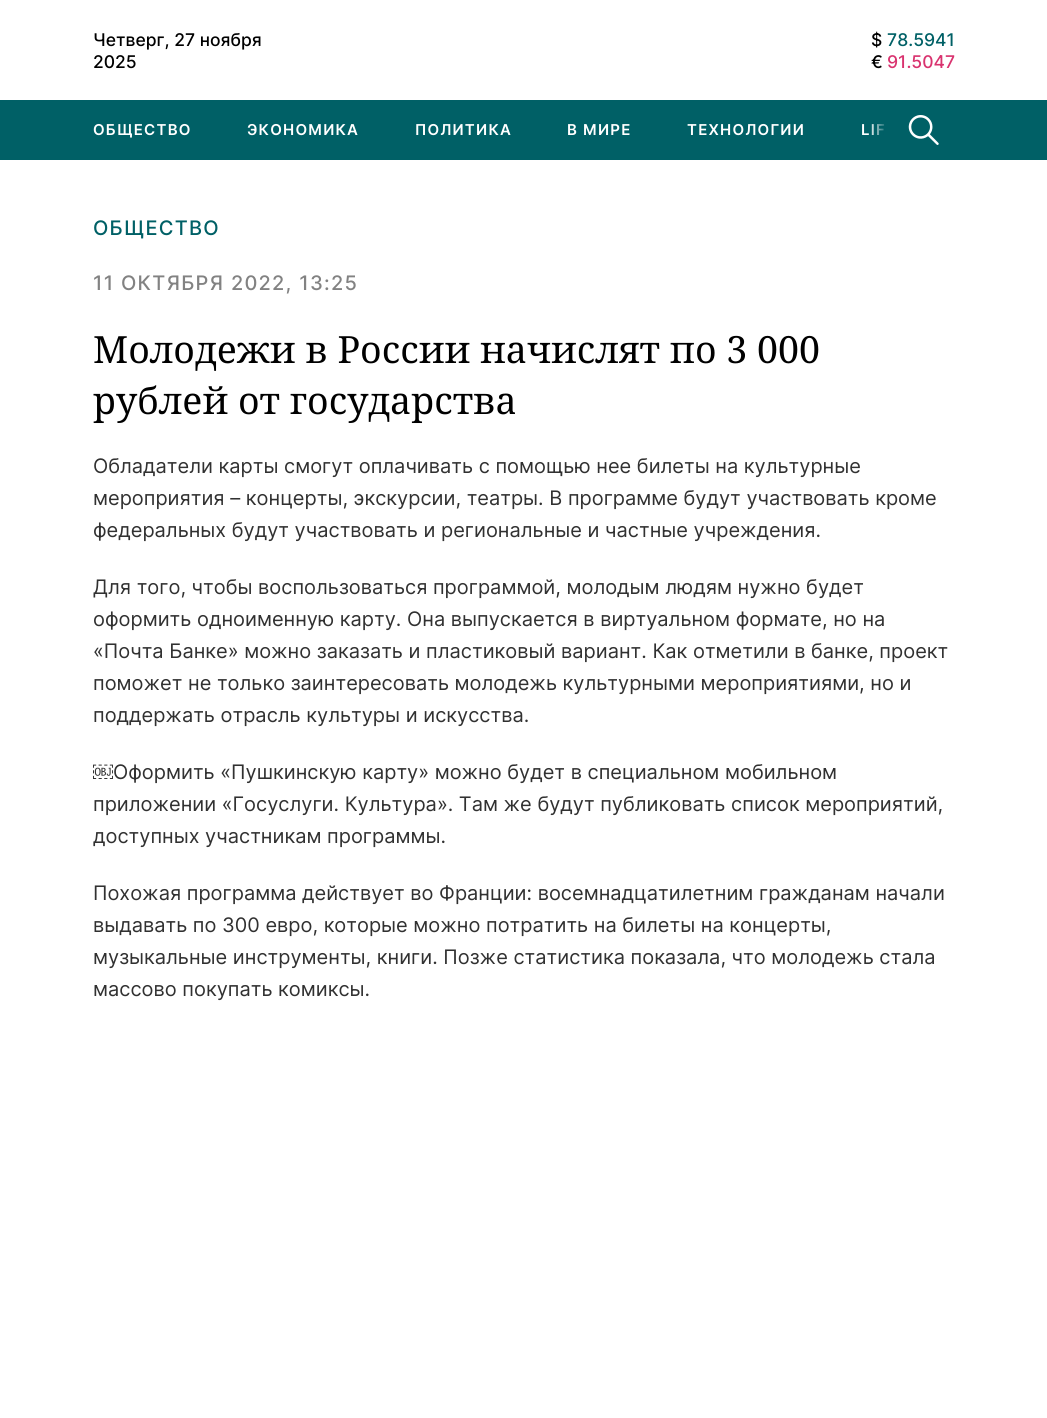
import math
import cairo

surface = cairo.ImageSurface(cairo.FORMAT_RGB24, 1047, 1418)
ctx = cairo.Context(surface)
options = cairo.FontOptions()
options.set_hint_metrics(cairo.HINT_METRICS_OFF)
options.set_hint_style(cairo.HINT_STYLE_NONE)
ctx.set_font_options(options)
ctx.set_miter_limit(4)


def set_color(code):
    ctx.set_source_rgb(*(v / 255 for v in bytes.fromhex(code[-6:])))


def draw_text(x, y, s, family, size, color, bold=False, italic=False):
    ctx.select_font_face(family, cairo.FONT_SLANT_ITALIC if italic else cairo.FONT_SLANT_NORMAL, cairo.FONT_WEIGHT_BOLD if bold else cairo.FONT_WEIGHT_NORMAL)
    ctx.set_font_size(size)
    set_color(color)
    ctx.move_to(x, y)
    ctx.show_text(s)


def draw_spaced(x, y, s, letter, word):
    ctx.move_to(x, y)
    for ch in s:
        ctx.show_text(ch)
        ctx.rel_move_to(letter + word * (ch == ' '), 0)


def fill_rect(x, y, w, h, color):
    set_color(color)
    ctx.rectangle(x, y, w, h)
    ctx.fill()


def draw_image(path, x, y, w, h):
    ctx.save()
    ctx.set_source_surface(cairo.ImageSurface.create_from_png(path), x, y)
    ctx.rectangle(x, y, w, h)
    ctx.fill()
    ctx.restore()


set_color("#ffffff")
ctx.paint()
draw_text(93, 46, "Четверг, 27 ноября", "Inter Medium", 17.5, "#000000")
draw_text(93, 68, "2025", "Inter Medium", 17.5, "#000000")
draw_text(871, 46, "$", "Inter Medium", 17.5, "#000000")
draw_text(887, 46, "78.5941", "Inter Medium", 17.5, "#006066")
draw_text(871, 68, "€", "Inter Medium", 17.5, "#000000")
draw_text(887, 68, "91.5047", "Inter Medium", 17.5, "#d9336f")
fill_rect(0, 100, 1047, 60, "#006066")
ctx.select_font_face("Inter SemiBold")
ctx.set_font_size(15)
set_color("#ffffff")
draw_spaced(93, 135, "ОБЩЕСТВО", 1.25, 0)
draw_spaced(247, 135, "ЭКОНОМИКА", 1.25, 0)
draw_spaced(415, 135, "ПОЛИТИКА", 1.25, 0)
draw_spaced(567, 135, "В МИРЕ", 1.25, 0)
draw_spaced(687, 135, "ТЕХНОЛОГИИ", 1.25, 0)
draw_spaced(861, 135, "LIF", 1.25, 0)
draw_image("assets/img1.png", 908, 115, 31, 30)
gradient = cairo.LinearGradient(868, 130, 905, 130)
gradient.add_color_stop_rgba(0, 0, 0.376, 0.4, 0)
gradient.add_color_stop_rgba(0.54, 0, 0.376, 0.4, 1)
ctx.set_source(gradient)
ctx.rectangle(868, 124, 17, 11)
ctx.fill()
ctx.select_font_face("Inter Medium")
ctx.set_font_size(20)
set_color("#006066")
draw_spaced(93, 235, "ОБЩЕСТВО", 1.25, 0)
set_color("#828282")
draw_spaced(93, 290, "11 ОКТЯБРЯ 2022, 13:25", 1.25, 0)
draw_text(93, 363, "Молодежи в России начислят по 3 000", "Noto Serif", 37.5, "#000000")
draw_text(93, 414, "рублей от государства", "Noto Serif", 37.5, "#000000")
draw_text(93, 473, "Обладатели карты смогут оплачивать с помощью нее билеты на культурные", "Inter", 20, "#313131")
draw_text(93, 505, "мероприятия – концерты, экскурсии, театры. В программе будут участвовать кроме", "Inter", 20, "#313131")
draw_text(93, 537, "федеральных будут участвовать и региональные и частные учреждения.", "Inter", 20, "#313131")
draw_text(93, 594, "Для того, чтобы воспользоваться программой, молодым людям нужно будет", "Inter", 20, "#313131")
draw_text(93, 626, "оформить одноименную карту. Она выпускается в виртуальном формате, но на", "Inter", 20, "#313131")
draw_text(93, 658, "«Почта Банке» можно заказать и пластиковый вариант. Как отметили в банке, проект", "Inter", 20, "#313131")
draw_text(93, 690, "поможет не только заинтересовать молодежь культурными мероприятиями, но и", "Inter", 20, "#313131")
draw_text(93, 722, "поддержать отрасль культуры и искусства.", "Inter", 20, "#313131")
draw_text(93, 779, "￼", "Liberation Serif", 20, "#313131")
draw_text(113, 779, "Оформить «Пушкинскую карту» можно будет в специальном мобильном", "Inter", 20, "#313131")
draw_text(93, 811, "приложении «Госуслуги. Культура». Там же будут публиковать список мероприятий,", "Inter", 20, "#313131")
draw_text(93, 843, "доступных участникам программы.", "Inter", 20, "#313131")
draw_text(93, 900, "Похожая программа действует во Франции: восемнадцатилетним гражданам начали", "Inter", 20, "#313131")
draw_text(93, 932, "выдавать по 300 евро, которые можно потратить на билеты на концерты,", "Inter", 20, "#313131")
draw_text(93, 964, "музыкальные инструменты, книги. Позже статистика показала, что молодежь стала", "Inter", 20, "#313131")
draw_text(93, 996, "массово покупать комиксы.", "Inter", 20, "#313131")
surface.write_to_png("output.png")
